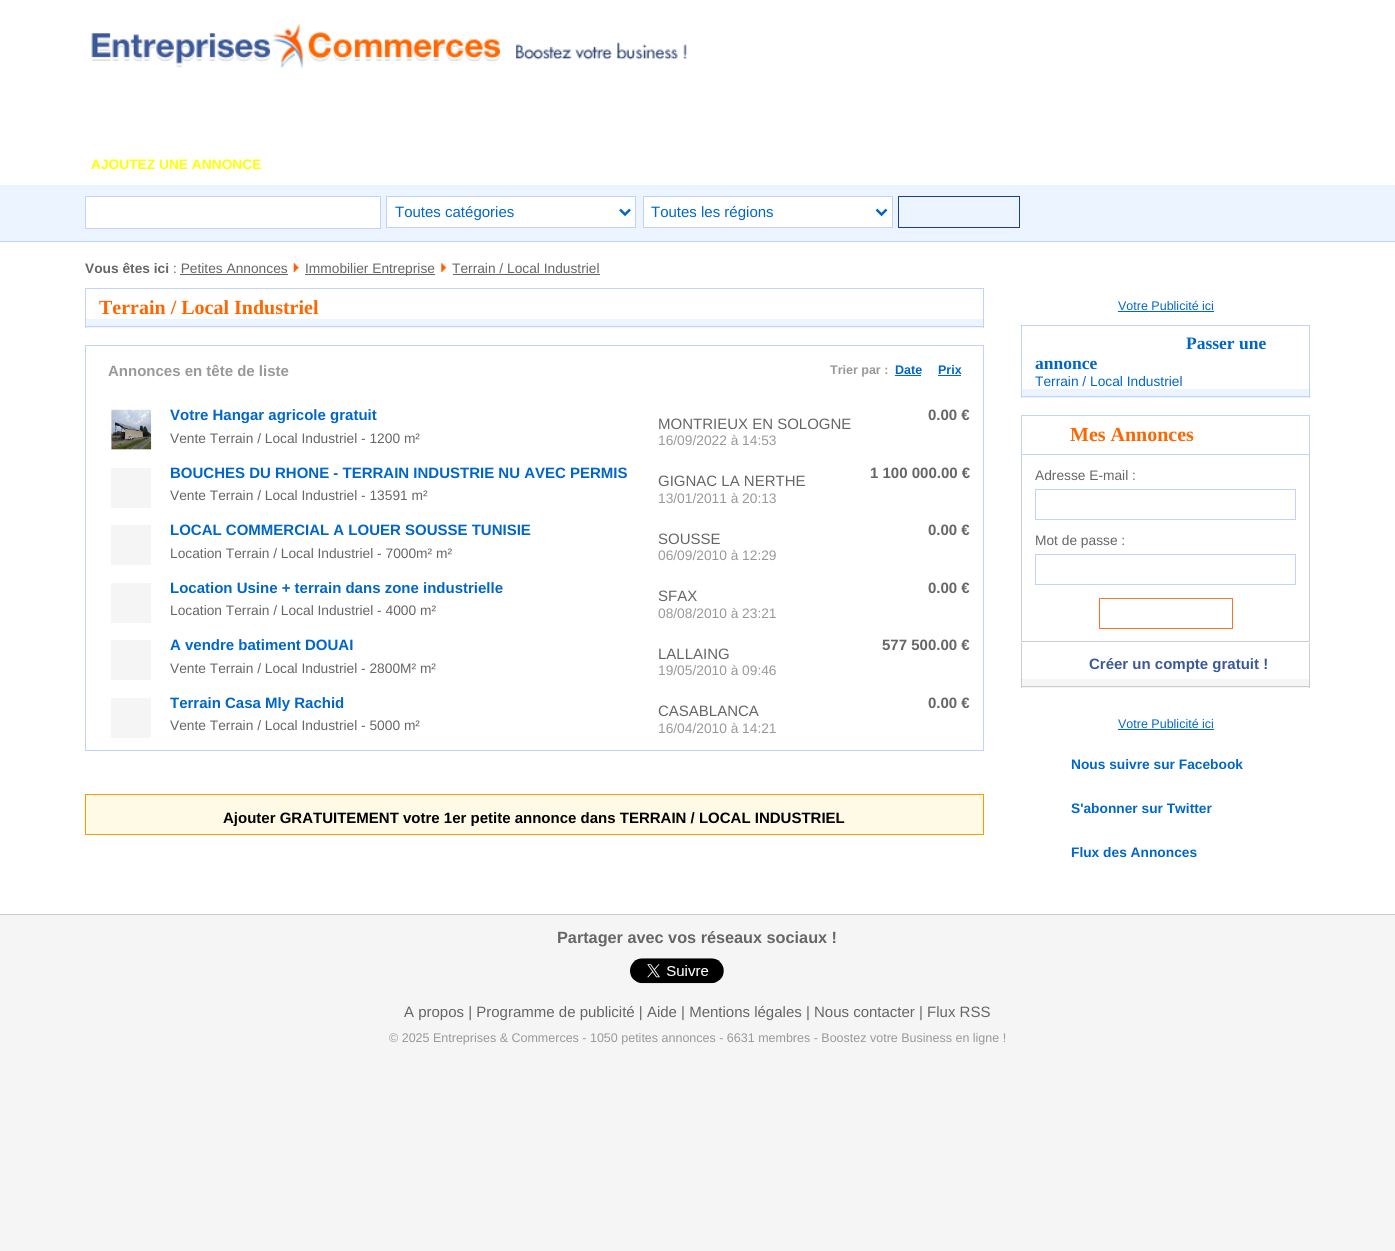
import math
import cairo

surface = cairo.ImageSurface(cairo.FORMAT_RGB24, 1395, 1251)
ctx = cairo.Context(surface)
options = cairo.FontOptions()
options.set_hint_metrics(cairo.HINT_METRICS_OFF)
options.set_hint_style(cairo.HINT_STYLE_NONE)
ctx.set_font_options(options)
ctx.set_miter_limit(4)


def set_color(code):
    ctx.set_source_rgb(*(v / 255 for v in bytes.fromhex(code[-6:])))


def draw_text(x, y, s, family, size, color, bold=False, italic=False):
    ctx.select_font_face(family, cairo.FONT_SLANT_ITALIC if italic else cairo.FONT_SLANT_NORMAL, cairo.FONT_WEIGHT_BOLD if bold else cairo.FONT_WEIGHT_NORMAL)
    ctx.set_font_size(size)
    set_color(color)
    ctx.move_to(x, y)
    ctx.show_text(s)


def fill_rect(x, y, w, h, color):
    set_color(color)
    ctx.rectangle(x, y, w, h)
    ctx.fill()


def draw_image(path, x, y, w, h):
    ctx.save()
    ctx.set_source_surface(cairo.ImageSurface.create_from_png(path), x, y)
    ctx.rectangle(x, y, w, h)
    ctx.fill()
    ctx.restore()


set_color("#ffffff")
ctx.paint()
fill_rect(0, 915, 1395, 336, "#f6f5f5")
draw_image("assets/img1.png", 91, 23, 409, 46)
draw_image("assets/img2.png", 516, 42, 171, 18)
draw_text(91, 169, "AJOUTEZ UNE ANNONCE", "Liberation Sans", 13.75, "#ffff00", bold=True)
fill_rect(0, 185, 1395, 56, "#ecf4ff")
set_color("#ffffff")
ctx.rectangle(85.5, 196.5, 295, 32)
ctx.fill_preserve()
set_color("#c0d3ff")
ctx.set_line_width(1)
ctx.stroke()
set_color("#ffffff")
ctx.rectangle(386.5, 196.5, 249, 31)
ctx.fill_preserve()
set_color("#c0d3ff")
ctx.stroke()
ctx.new_path()
ctx.move_to(620, 209.5)
ctx.line_to(625, 214.5)
ctx.line_to(630, 209.5)
set_color("#0066cc")
ctx.set_line_width(2.5)
ctx.stroke()
draw_text(395, 217, "Toutes catégories", "Liberation Sans", 15, "#0066cc")
set_color("#ffffff")
ctx.rectangle(643.5, 196.5, 249, 31)
ctx.fill_preserve()
set_color("#c0d3ff")
ctx.set_line_width(1)
ctx.stroke()
ctx.new_path()
ctx.move_to(876.5, 209.5)
ctx.line_to(881.5, 214.5)
ctx.line_to(886.5, 209.5)
set_color("#0066cc")
ctx.set_line_width(2.5)
ctx.stroke()
draw_text(651, 217, "Toutes les régions", "Liberation Sans", 15, "#0066cc")
ctx.rectangle(898.5, 196.5, 121, 31)
set_color("#1b3f8d")
ctx.set_line_width(1)
ctx.stroke()
fill_rect(0, 241, 1395, 1, "#c0d3ff")
draw_text(85, 273, "Vous êtes ici", "Liberation Sans", 13.75, "#666666", bold=True)
draw_text(173, 273, ": Petites Annonces", "Liberation Sans", 13.75, "#666666")
draw_image("assets/img3.png", 293, 263, 6, 9)
fill_rect(305, 274, 130, 1, "#666666")
draw_text(305, 273, "Immobilier Entreprise", "Liberation Sans", 13.75, "#666666")
draw_image("assets/img4.png", 441, 263, 6, 9)
draw_text(452, 273, "Terrain / Local Industriel", "Liberation Sans", 13.75, "#666666")
fill_rect(453, 274, 147, 1, "#666666")
fill_rect(180, 274, 108, 1, "#666666")
fill_rect(85, 288, 899, 1, "#c0d3ff")
fill_rect(983, 288, 1, 40, "#c0d3ff")
fill_rect(85, 288, 1, 31, "#c0d3ff")
draw_text(99, 314, "Terrain / Local Industriel", "Liberation Serif", 20, "#ff6600", bold=True)
fill_rect(86, 319, 897, 9, "#ecf4ff")
fill_rect(85, 326, 899, 1, "#c0d3ff")
fill_rect(85, 319, 1, 9, "#c0d3ff")
fill_rect(85, 345, 899, 1, "#c0d3ff")
fill_rect(983, 345, 1, 406, "#c0d3ff")
fill_rect(85, 345, 1, 398, "#c0d3ff")
draw_text(108, 376, "Annonces en tête de liste", "Liberation Sans", 15, "#999999", bold=True)
draw_text(830, 374, "Trier par :", "Liberation Sans", 12.5, "#999999", bold=True)
draw_text(895, 374, "Date", "Liberation Sans", 12.5, "#0066cc", bold=True)
fill_rect(895, 375, 26, 1, "#0066cc")
draw_text(938, 374, "Prix", "Liberation Sans", 12.5, "#0066cc", bold=True)
fill_rect(938, 375, 23, 1, "#0066cc")
fill_rect(111, 410, 40, 40, "#f6f5f5")
draw_image("assets/img5.png", 111, 409, 41, 41)
draw_text(170, 420, "Votre Hangar agricole gratuit", "Liberation Sans", 15, "#0066cc", bold=True)
draw_text(170, 443, "Vente Terrain / Local Industriel - 1200 m²", "Liberation Sans", 13.75, "#666666")
draw_text(928, 420, "0.00 €", "Liberation Sans", 15, "#666666", bold=True)
draw_text(658, 429, "MONTRIEUX EN SOLOGNE", "Liberation Sans", 15, "#666666")
draw_text(658, 445, "16/09/2022 à 14:53", "Liberation Sans", 13.75, "#999999")
fill_rect(111, 468, 40, 40, "#f6f5f5")
draw_text(170, 478, "BOUCHES DU RHONE - TERRAIN INDUSTRIE NU AVEC PERMIS", "Liberation Sans", 15, "#0066cc", bold=True)
draw_text(170, 500, "Vente Terrain / Local Industriel - 13591 m²", "Liberation Sans", 13.75, "#666666")
draw_text(658, 486, "GIGNAC LA NERTHE", "Liberation Sans", 15, "#666666")
draw_text(658, 503, "13/01/2011 à 20:13", "Liberation Sans", 13.75, "#999999")
draw_text(870, 478, "1 100 000.00 €", "Liberation Sans", 15, "#666666", bold=True)
fill_rect(111, 525, 40, 40, "#f6f5f5")
draw_text(170, 535, "LOCAL COMMERCIAL A LOUER SOUSSE TUNISIE", "Liberation Sans", 15, "#0066cc", bold=True)
draw_text(170, 558, "Location Terrain / Local Industriel - 7000m² m²", "Liberation Sans", 13.75, "#666666")
draw_text(658, 544, "SOUSSE", "Liberation Sans", 15, "#666666")
draw_text(658, 560, "06/09/2010 à 12:29", "Liberation Sans", 13.75, "#999999")
draw_text(928, 535, "0.00 €", "Liberation Sans", 15, "#666666", bold=True)
fill_rect(111, 583, 40, 40, "#f6f5f5")
draw_text(170, 593, "Location Usine + terrain dans zone industrielle", "Liberation Sans", 15, "#0066cc", bold=True)
draw_text(170, 615, "Location Terrain / Local Industriel - 4000 m²", "Liberation Sans", 13.75, "#666666")
draw_text(658, 601, "SFAX", "Liberation Sans", 15, "#666666")
draw_text(658, 618, "08/08/2010 à 23:21", "Liberation Sans", 13.75, "#999999")
draw_text(928, 593, "0.00 €", "Liberation Sans", 15, "#666666", bold=True)
fill_rect(111, 640, 40, 40, "#f6f5f5")
draw_text(170, 650, "A vendre batiment DOUAI", "Liberation Sans", 15, "#0066cc", bold=True)
draw_text(170, 673, "Vente Terrain / Local Industriel - 2800M² m²", "Liberation Sans", 13.75, "#666666")
draw_text(658, 659, "LALLAING", "Liberation Sans", 15, "#666666")
draw_text(658, 675, "19/05/2010 à 09:46", "Liberation Sans", 13.75, "#999999")
draw_text(882, 650, "577 500.00 €", "Liberation Sans", 15, "#666666", bold=True)
fill_rect(111, 698, 40, 40, "#f6f5f5")
draw_text(170, 708, "Terrain Casa Mly Rachid", "Liberation Sans", 15, "#0066cc", bold=True)
draw_text(170, 730, "Vente Terrain / Local Industriel - 5000 m²", "Liberation Sans", 13.75, "#666666")
draw_text(658, 716, "CASABLANCA", "Liberation Sans", 15, "#666666")
draw_text(658, 733, "16/04/2010 à 14:21", "Liberation Sans", 13.75, "#999999")
draw_text(928, 708, "0.00 €", "Liberation Sans", 15, "#666666", bold=True)
fill_rect(85, 750, 899, 1, "#c0d3ff")
fill_rect(85, 743, 1, 8, "#c0d3ff")
fill_rect(86, 795, 897, 31, "#fffae6")
fill_rect(85, 794, 899, 1, "#ff9900")
fill_rect(983, 794, 1, 41, "#ff9900")
fill_rect(85, 794, 1, 32, "#ff9900")
draw_text(223, 823, "Ajouter GRATUITEMENT votre 1er petite annonce dans TERRAIN / LOCAL INDUSTRIEL", "Liberation Sans", 15, "#000000", bold=True)
fill_rect(86, 826, 897, 8, "#fffae6")
fill_rect(85, 834, 899, 1, "#ff9900")
fill_rect(85, 826, 1, 9, "#ff9900")
draw_text(1118, 310, "Votre Publicité ici", "Liberation Sans", 12.5, "#0066cc")
fill_rect(1118, 311, 96, 1, "#0066cc")
fill_rect(1021, 325, 289, 1, "#c0d3ff")
fill_rect(1309, 325, 1, 73, "#c0d3ff")
fill_rect(1021, 325, 1, 64, "#c0d3ff")
draw_text(1186, 349, "Passer une", "Liberation Serif", 17.5, "#0066cc", bold=True)
draw_text(1035, 369, "annonce", "Liberation Serif", 17.5, "#0066cc", bold=True)
draw_text(1035, 386, "Terrain / Local Industriel", "Liberation Sans", 13.75, "#0066cc")
fill_rect(1022, 389, 287, 9, "#ecf4ff")
fill_rect(1021, 396, 289, 1, "#c0d3ff")
fill_rect(1021, 389, 1, 9, "#c0d3ff")
fill_rect(1021, 415, 289, 1, "#c0d3ff")
fill_rect(1309, 415, 1, 40, "#c0d3ff")
fill_rect(1021, 415, 1, 9, "#c0d3ff")
fill_rect(1021, 454, 289, 1, "#c0d3ff")
fill_rect(1021, 424, 1, 31, "#c0d3ff")
draw_text(1070, 441, "Mes Annonces", "Liberation Serif", 20, "#ff6600", bold=True)
fill_rect(1309, 455, 1, 186, "#cccccc")
fill_rect(1021, 455, 1, 186, "#cccccc")
draw_text(1035, 480, "Adresse E-mail :", "Liberation Sans", 13.75, "#666666")
ctx.rectangle(1035.5, 489.5, 260, 30)
set_color("#c0d3ff")
ctx.stroke()
draw_text(1035, 545, "Mot de passe :", "Liberation Sans", 13.75, "#666666")
ctx.rectangle(1035.5, 554.5, 260, 30)
set_color("#c0d3ff")
ctx.stroke()
ctx.rectangle(1099.5, 598.5, 133, 30)
set_color("#ff7329")
ctx.stroke()
fill_rect(1021, 641, 289, 1, "#cccccc")
fill_rect(1309, 643, 1, 45, "#cccccc")
fill_rect(1021, 643, 1, 36, "#cccccc")
draw_text(1089, 669, "Créer un compte gratuit !", "Liberation Sans", 15, "#3b5998", bold=True)
fill_rect(1022, 679, 287, 9, "#f5f5f5")
fill_rect(1021, 686, 289, 1, "#cccccc")
fill_rect(1021, 679, 1, 9, "#cccccc")
draw_text(1118, 728, "Votre Publicité ici", "Liberation Sans", 12.5, "#0066cc")
fill_rect(1118, 729, 96, 1, "#0066cc")
draw_text(1071, 769, "Nous suivre sur Facebook", "Liberation Sans", 13.75, "#0066cc", bold=True)
draw_text(1071, 813, "S'abonner sur Twitter", "Liberation Sans", 13.75, "#0066cc", bold=True)
draw_text(1071, 857, "Flux des Annonces", "Liberation Sans", 13.75, "#0066cc", bold=True)
fill_rect(0, 914, 1395, 1, "#cccccc")
draw_text(557, 943, "Partager avec vos réseaux sociaux !", "Liberation Sans", 16.25, "#666666", bold=True)
draw_image("assets/img6.png", 630, 958, 94, 26)
draw_text(404, 1017, "A propos | Programme de publicité | Aide | Mentions légales | Nous contacter | Flux RSS", "Liberation Sans", 15, "#666666")
draw_text(389, 1042, "© 2025 Entreprises & Commerces - 1050 petites annonces - 6631 membres - Boostez votre Business en ligne !", "Liberation Sans", 12.5, "#999999")
surface.write_to_png("output.png")
